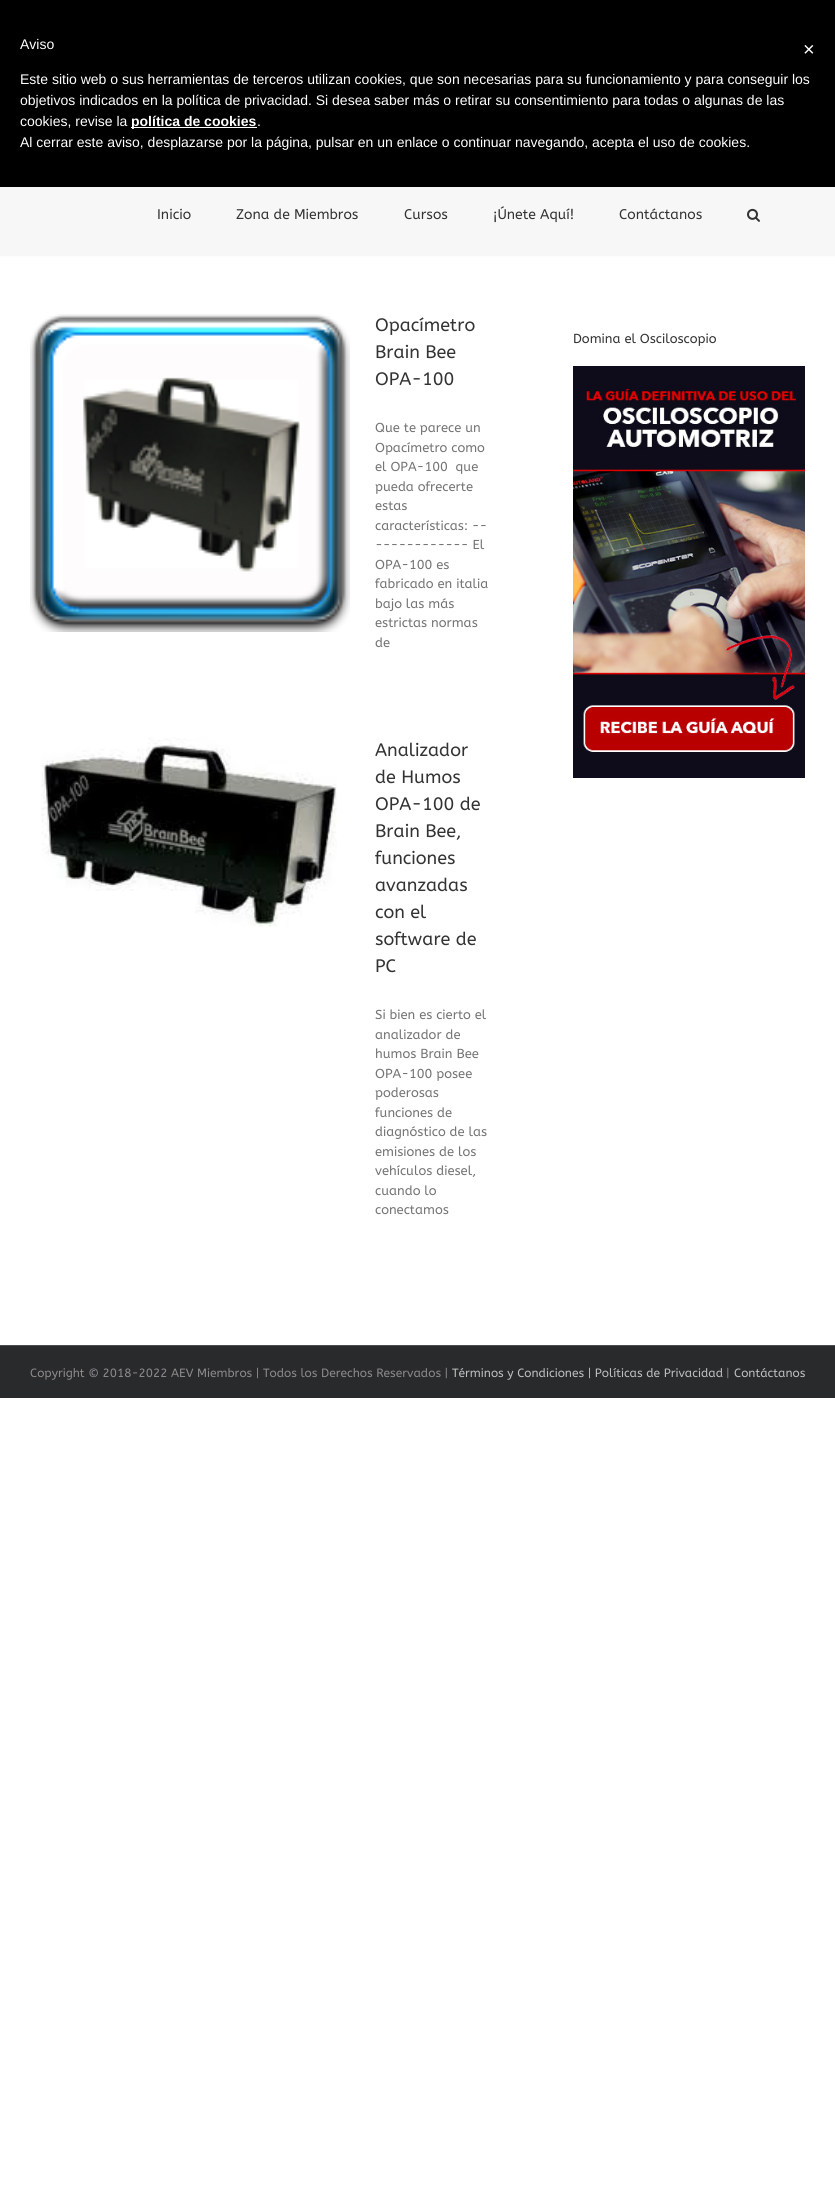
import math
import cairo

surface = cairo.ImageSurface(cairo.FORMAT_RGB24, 835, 2210)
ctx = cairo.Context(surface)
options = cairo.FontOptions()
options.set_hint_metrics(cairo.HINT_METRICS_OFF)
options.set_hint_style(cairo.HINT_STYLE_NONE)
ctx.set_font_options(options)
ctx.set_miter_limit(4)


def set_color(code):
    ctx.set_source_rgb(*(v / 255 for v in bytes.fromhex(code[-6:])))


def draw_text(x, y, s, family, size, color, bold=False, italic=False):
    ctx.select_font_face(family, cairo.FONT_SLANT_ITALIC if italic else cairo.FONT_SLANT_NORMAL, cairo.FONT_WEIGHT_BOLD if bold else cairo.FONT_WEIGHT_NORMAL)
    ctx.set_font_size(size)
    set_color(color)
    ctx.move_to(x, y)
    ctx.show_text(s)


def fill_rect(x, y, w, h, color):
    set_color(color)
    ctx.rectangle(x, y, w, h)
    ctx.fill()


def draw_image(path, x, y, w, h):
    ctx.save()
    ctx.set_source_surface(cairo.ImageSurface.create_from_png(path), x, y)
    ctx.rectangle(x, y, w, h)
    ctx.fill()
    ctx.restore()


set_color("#ffffff")
ctx.paint()
fill_rect(0, 0, 835, 187, "#000000")
draw_text(20, 49, "Aviso", "Liberation Sans", 14, "#ffffff")
draw_text(20, 84, "Este sitio web o sus herramientas de terceros utilizan cookies, que son necesarias para su funcionamiento y para conseguir los", "Liberation Sans", 14, "#ffffff")
draw_text(20, 105, "objetivos indicados en la política de privacidad. Si desea saber más o retirar su consentimiento para todas o algunas de las", "Liberation Sans", 14, "#ffffff")
draw_text(20, 126, "cookies, revise la", "Liberation Sans", 14, "#ffffff")
fill_rect(131, 127, 126, 1, "#ffffff")
draw_text(131, 126, "política de cookies", "Liberation Sans", 14, "#ffffff", bold=True)
draw_text(257, 126, ".", "Liberation Sans", 14, "#ffffff")
draw_text(20, 147, "Al cerrar este aviso, desplazarse por la página, pulsar en un enlace o continuar navegando, acepta el uso de cookies.", "Liberation Sans", 14, "#ffffff")
draw_text(803, 56, "×", "Liberation Sans", 20, "#ffffff")
fill_rect(0, 187, 835, 69, "#f7f7f7")
fill_rect(0, 256, 835, 1, "#fcfcfc")
draw_text(157, 219, "Inicio", "ABeeZee", 14, "#333333")
draw_text(236, 219, "Zona de Miembros", "ABeeZee", 14, "#333333")
draw_text(404, 219, "Cursos", "ABeeZee", 14, "#333333")
draw_text(493, 219, "¡Únete Aquí!", "ABeeZee", 14, "#333333")
draw_text(619, 219, "Contáctanos", "ABeeZee", 14, "#333333")
draw_image("assets/img1.png", 747, 208, 13, 14)
draw_image("assets/img2.png", 30, 314, 320, 318)
draw_text(375, 331, "Opacímetro", "ABeeZee", 18, "#333333")
draw_text(375, 358, "Brain Bee", "ABeeZee", 18, "#333333")
draw_text(375, 385, "OPA-100", "ABeeZee", 18, "#333333")
draw_text(375, 432, "Que te parece un", "ABeeZee", 13, "#747474")
draw_text(375, 452, "Opacímetro como", "ABeeZee", 13, "#747474")
draw_text(375, 471, "el OPA-100  que", "ABeeZee", 13, "#747474")
draw_text(375, 491, "pueda ofrecerte", "ABeeZee", 13, "#747474")
draw_text(375, 510, "estas", "ABeeZee", 13, "#747474")
draw_text(375, 530, "características: --", "ABeeZee", 13, "#747474")
draw_text(375, 549, "------------ El", "ABeeZee", 13, "#747474")
draw_text(375, 569, "OPA-100 es", "ABeeZee", 13, "#747474")
draw_text(375, 588, "fabricado en italia", "ABeeZee", 13, "#747474")
draw_text(375, 608, "bajo las más", "ABeeZee", 13, "#747474")
draw_text(375, 627, "estrictas normas", "ABeeZee", 13, "#747474")
draw_text(375, 647, "de", "ABeeZee", 13, "#747474")
draw_image("assets/img3.png", 41, 737, 296, 190)
draw_text(375, 756, "Analizador", "ABeeZee", 18, "#333333")
draw_text(375, 783, "de Humos", "ABeeZee", 18, "#333333")
draw_text(375, 810, "OPA-100 de", "ABeeZee", 18, "#333333")
draw_text(375, 837, "Brain Bee,", "ABeeZee", 18, "#333333")
draw_text(375, 864, "funciones", "ABeeZee", 18, "#333333")
draw_text(375, 891, "avanzadas", "ABeeZee", 18, "#333333")
draw_text(375, 918, "con el", "ABeeZee", 18, "#333333")
draw_text(375, 945, "software de", "ABeeZee", 18, "#333333")
draw_text(375, 972, "PC", "ABeeZee", 18, "#333333")
draw_text(375, 1019, "Si bien es cierto el", "ABeeZee", 13, "#747474")
draw_text(375, 1039, "analizador de", "ABeeZee", 13, "#747474")
draw_text(375, 1058, "humos Brain Bee", "ABeeZee", 13, "#747474")
draw_text(375, 1078, "OPA-100 posee", "ABeeZee", 13, "#747474")
draw_text(375, 1097, "poderosas", "ABeeZee", 13, "#747474")
draw_text(375, 1117, "funciones de", "ABeeZee", 13, "#747474")
draw_text(375, 1136, "diagnóstico de las", "ABeeZee", 13, "#747474")
draw_text(375, 1156, "emisiones de los", "ABeeZee", 13, "#747474")
draw_text(375, 1175, "vehículos diesel,", "ABeeZee", 13, "#747474")
draw_text(375, 1195, "cuando lo", "ABeeZee", 13, "#747474")
draw_text(375, 1214, "conectamos", "ABeeZee", 13, "#747474")
draw_text(573, 343, "Domina el Osciloscopio", "ABeeZee", 13, "#333333")
draw_image("assets/img4.png", 573, 366, 232, 412)
fill_rect(0, 1346, 835, 52, "#282a2b")
fill_rect(0, 1345, 835, 1, "#4b4c4d")
draw_text(30, 1377, "Copyright © 2018-2022 AEV Miembros | Todos los Derechos Reservados |", "ABeeZee", 12, "#8c8989")
draw_text(452, 1377, "Términos y Condiciones | Políticas de Privacidad", "ABeeZee", 12, "#bfbfbf")
draw_text(726, 1377, "|", "ABeeZee", 12, "#8c8989")
draw_text(734, 1377, "Contáctanos", "ABeeZee", 12, "#bfbfbf")
surface.write_to_png("output.png")
